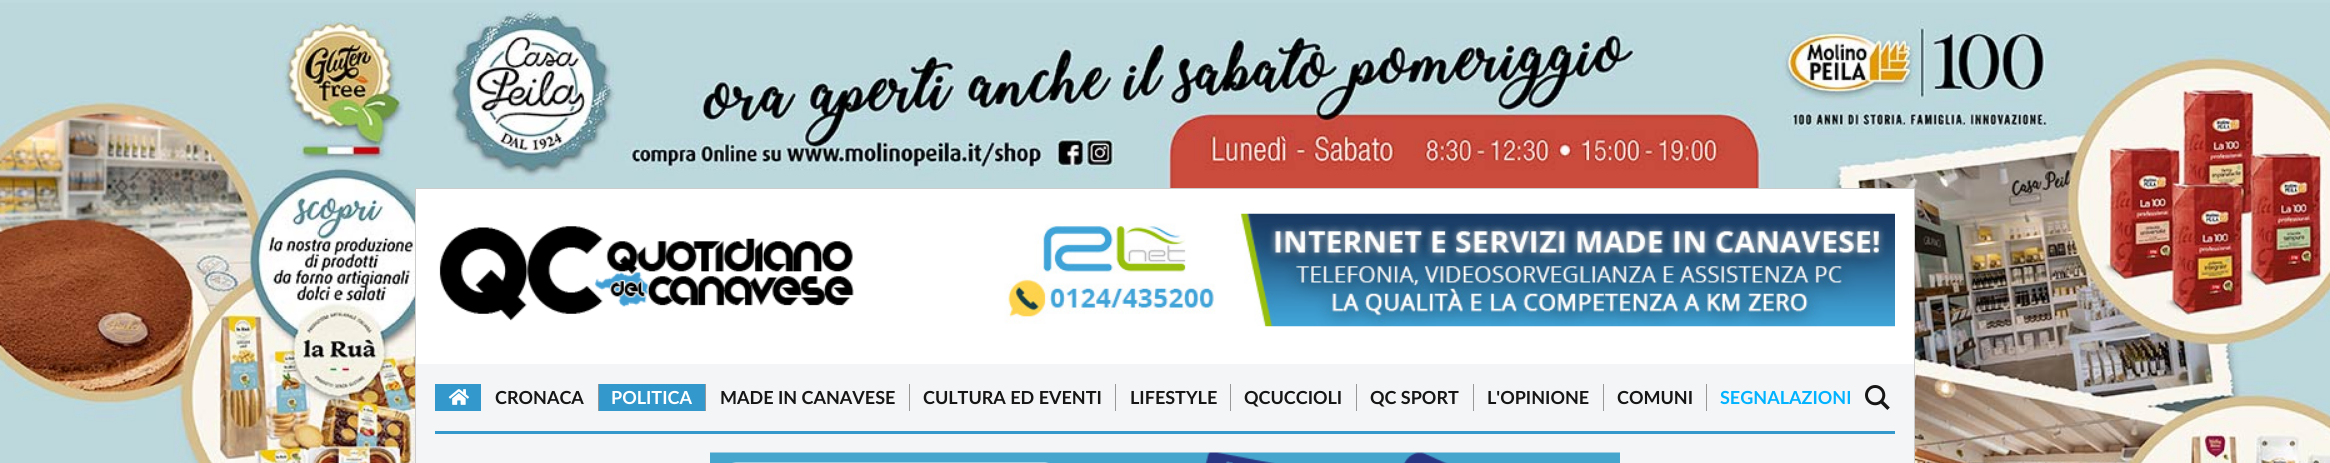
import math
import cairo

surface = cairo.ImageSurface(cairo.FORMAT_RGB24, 2330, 463)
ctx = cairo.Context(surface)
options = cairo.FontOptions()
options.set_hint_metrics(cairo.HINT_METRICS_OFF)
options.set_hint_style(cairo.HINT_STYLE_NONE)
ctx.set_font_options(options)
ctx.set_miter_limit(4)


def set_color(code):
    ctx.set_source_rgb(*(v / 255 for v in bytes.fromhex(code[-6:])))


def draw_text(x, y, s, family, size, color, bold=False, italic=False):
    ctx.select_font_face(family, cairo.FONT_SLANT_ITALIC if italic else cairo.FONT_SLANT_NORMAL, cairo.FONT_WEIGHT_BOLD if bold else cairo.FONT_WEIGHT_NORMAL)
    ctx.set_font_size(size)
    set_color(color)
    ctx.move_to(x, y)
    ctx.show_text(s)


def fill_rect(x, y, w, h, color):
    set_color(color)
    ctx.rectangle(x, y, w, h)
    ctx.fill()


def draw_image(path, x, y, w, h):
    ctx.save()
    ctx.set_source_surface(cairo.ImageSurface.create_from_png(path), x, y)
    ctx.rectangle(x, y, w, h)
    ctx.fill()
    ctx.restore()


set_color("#ffffff")
ctx.paint()
draw_image("assets/img1.png", 0, 0, 2330, 463)
fill_rect(416, 189, 1498, 175, "#ffffff")
ctx.rectangle(415.5, 188.5, 1499, 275)
set_color("#cccccc")
ctx.set_line_width(1)
ctx.stroke()
draw_image("assets/img2.png", 439, 226, 415, 95)
draw_image("assets/img3.png", 985, 213, 910, 114)
fill_rect(416, 364, 1498, 99, "#f4f5f6")
draw_image("assets/img4.png", 710, 452, 910, 11)
fill_rect(435, 431, 1460, 3, "#3398cc")
fill_rect(435, 384, 46, 27, "#3398cc")
draw_image("assets/img5.png", 448, 389, 21, 16)
fill_rect(598, 384, 1, 27, "#999999")
draw_text(495, 404, "CRONACA", "Lato", 18, "#161616", bold=True)
fill_rect(599, 384, 106, 27, "#3398cc")
fill_rect(705, 384, 1, 27, "#999999")
draw_text(611, 404, "POLITICA", "Lato", 18, "#ffffff", bold=True)
fill_rect(909, 384, 1, 27, "#999999")
draw_text(720, 404, "MADE IN CANAVESE", "Lato", 18, "#161616", bold=True)
fill_rect(1115, 384, 1, 27, "#999999")
draw_text(923, 404, "CULTURA ED EVENTI", "Lato", 18, "#161616", bold=True)
fill_rect(1230, 384, 1, 27, "#999999")
draw_text(1130, 404, "LIFESTYLE", "Lato", 18, "#161616", bold=True)
fill_rect(1356, 384, 1, 27, "#999999")
draw_text(1244, 404, "QCUCCIOLI", "Lato", 18, "#161616", bold=True)
fill_rect(1473, 384, 1, 27, "#999999")
draw_text(1370, 404, "QC SPORT", "Lato", 18, "#161616", bold=True)
fill_rect(1603, 384, 1, 27, "#999999")
draw_text(1487, 404, "L'OPINIONE", "Lato", 18, "#161616", bold=True)
fill_rect(1706, 384, 1, 27, "#999999")
draw_text(1617, 404, "COMUNI", "Lato", 18, "#161616", bold=True)
draw_text(1720, 404, "SEGNALAZIONI", "Lato", 18, "#00b2ff", bold=True)
draw_image("assets/img6.png", 1865, 385, 25, 25)
surface.write_to_png("output.png")
